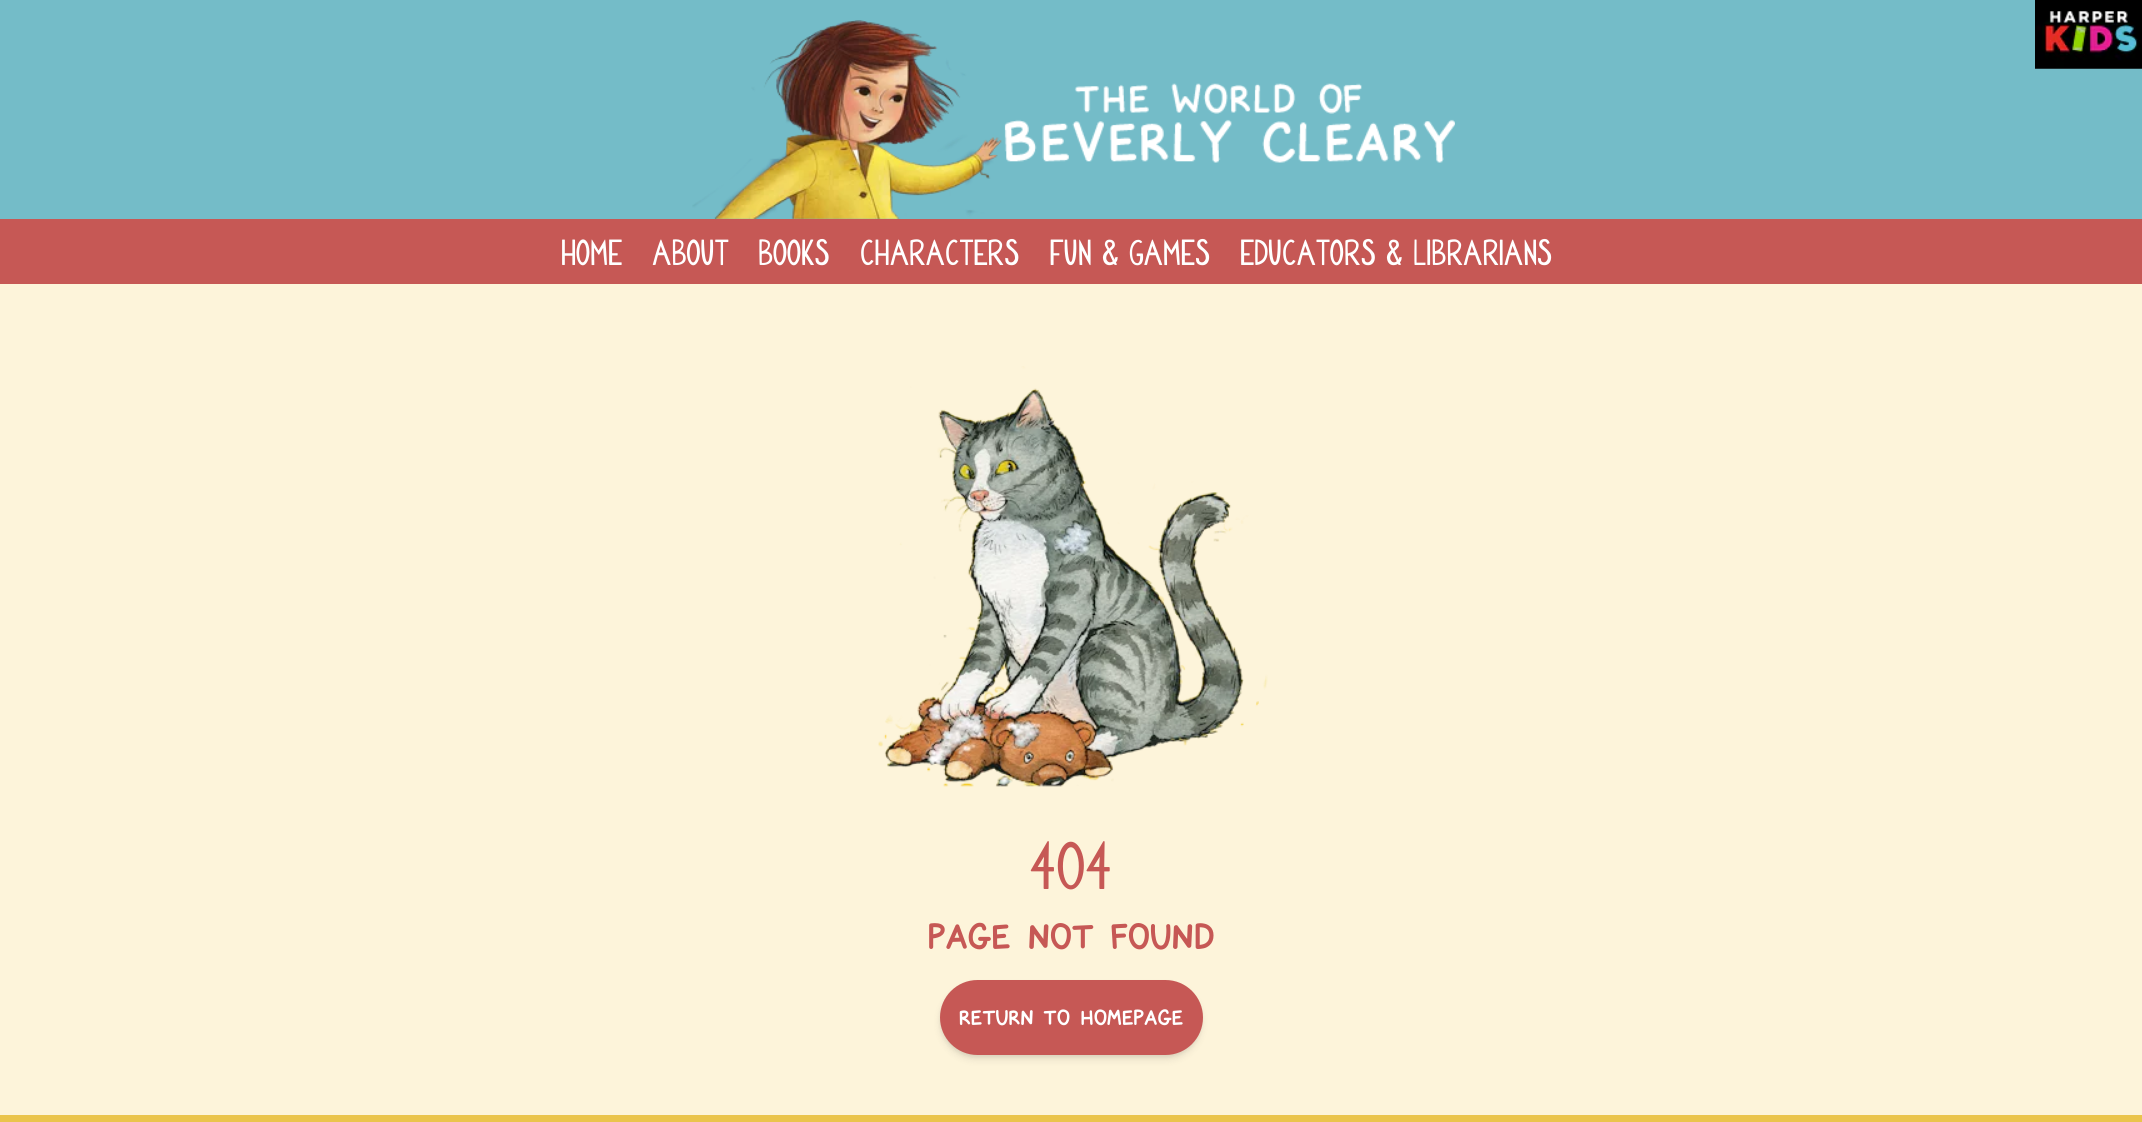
import math
import cairo

surface = cairo.ImageSurface(cairo.FORMAT_RGB24, 2142, 1122)
ctx = cairo.Context(surface)
options = cairo.FontOptions()
options.set_hint_metrics(cairo.HINT_METRICS_OFF)
options.set_hint_style(cairo.HINT_STYLE_NONE)
ctx.set_font_options(options)
ctx.set_miter_limit(4)


def set_color(code):
    ctx.set_source_rgb(*(v / 255 for v in bytes.fromhex(code[-6:])))


def draw_text(x, y, s, family, size, color, bold=False, italic=False):
    ctx.select_font_face(family, cairo.FONT_SLANT_ITALIC if italic else cairo.FONT_SLANT_NORMAL, cairo.FONT_WEIGHT_BOLD if bold else cairo.FONT_WEIGHT_NORMAL)
    ctx.set_font_size(size)
    set_color(color)
    ctx.move_to(x, y)
    ctx.show_text(s)


def fill_rect(x, y, w, h, color):
    set_color(color)
    ctx.rectangle(x, y, w, h)
    ctx.fill()


def rounded_rect(x, y, w, h, r):
    ctx.new_sub_path()
    for i, (u, v) in enumerate([(x + w - r, y + h - r), (x + r, y + h - r), (x + r, y + r), (x + w - r, y + r)]):
        ctx.arc(u, v, r, i * math.pi / 2, (i + 1) * math.pi / 2)
    ctx.close_path()


def draw_shadow(x, y, w, h, r, blur, alpha):
    ctx.push_group_with_content(cairo.CONTENT_ALPHA)
    ctx.set_operator(cairo.OPERATOR_SOURCE)
    for i in range(15, -16, -2):
        e = blur * i / 6
        if min(w, h) + 2 * e > 0:
            ctx.set_source_rgba(0, 0, 0, alpha * math.erfc((i - 1) / 8.5) / 2)
            rounded_rect(x - e, y - e, w + 2 * e, h + 2 * e, max(0, min(r + e + blur * .6, min(w, h) / 2 + e)))
            ctx.fill()
    ctx.mask(ctx.pop_group())


def draw_image(path, x, y, w, h):
    ctx.save()
    ctx.set_source_surface(cairo.ImageSurface.create_from_png(path), x, y)
    ctx.rectangle(x, y, w, h)
    ctx.fill()
    ctx.restore()


set_color("#fdf4da")
ctx.paint()
fill_rect(0, 0, 2142, 219, "#74bcc8")
draw_image("assets/img1.png", 692, 20, 763, 199)
draw_image("assets/img2.png", 2035, 0, 107, 69)
fill_rect(0, 219, 2142, 65, "#c65855")
draw_text(561, 265, "HOME", "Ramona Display", 40, "#ffffff")
draw_text(652, 265, "ABOUT", "Ramona Display", 40, "#ffffff")
draw_text(758, 265, "BOOKS", "Ramona Display", 40, "#ffffff")
draw_text(860, 265, "CHARACTERS", "Ramona Display", 40, "#ffffff")
draw_text(1049, 265, "FUN & GAMES", "Ramona Display", 40, "#ffffff")
draw_text(1240, 265, "EDUCATORS & LIBRARIANS", "Ramona Display", 40, "#ffffff")
draw_image("assets/img3.png", 878, 366, 390, 421)
draw_text(1030, 889, "404", "Ramona Display", 75, "#c65855")
draw_text(928, 949, "PAGE NOT FOUND", "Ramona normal", 62.5, "#c65855")
set_color("#000000")
draw_shadow(941, 984, 260, 72, 36, 2.5, 0.08)
draw_shadow(941, 986, 260, 73, 36.5, 4, 0.1)
set_color("#c65855")
rounded_rect(940, 980, 263, 75, 37.5)
ctx.fill()
draw_text(959, 1025, "RETURN TO HOMEPAGE", "Ramona normal", 37.5, "#ffffff")
fill_rect(0, 1115, 2142, 7, "#eac44c")
surface.write_to_png("output.png")
